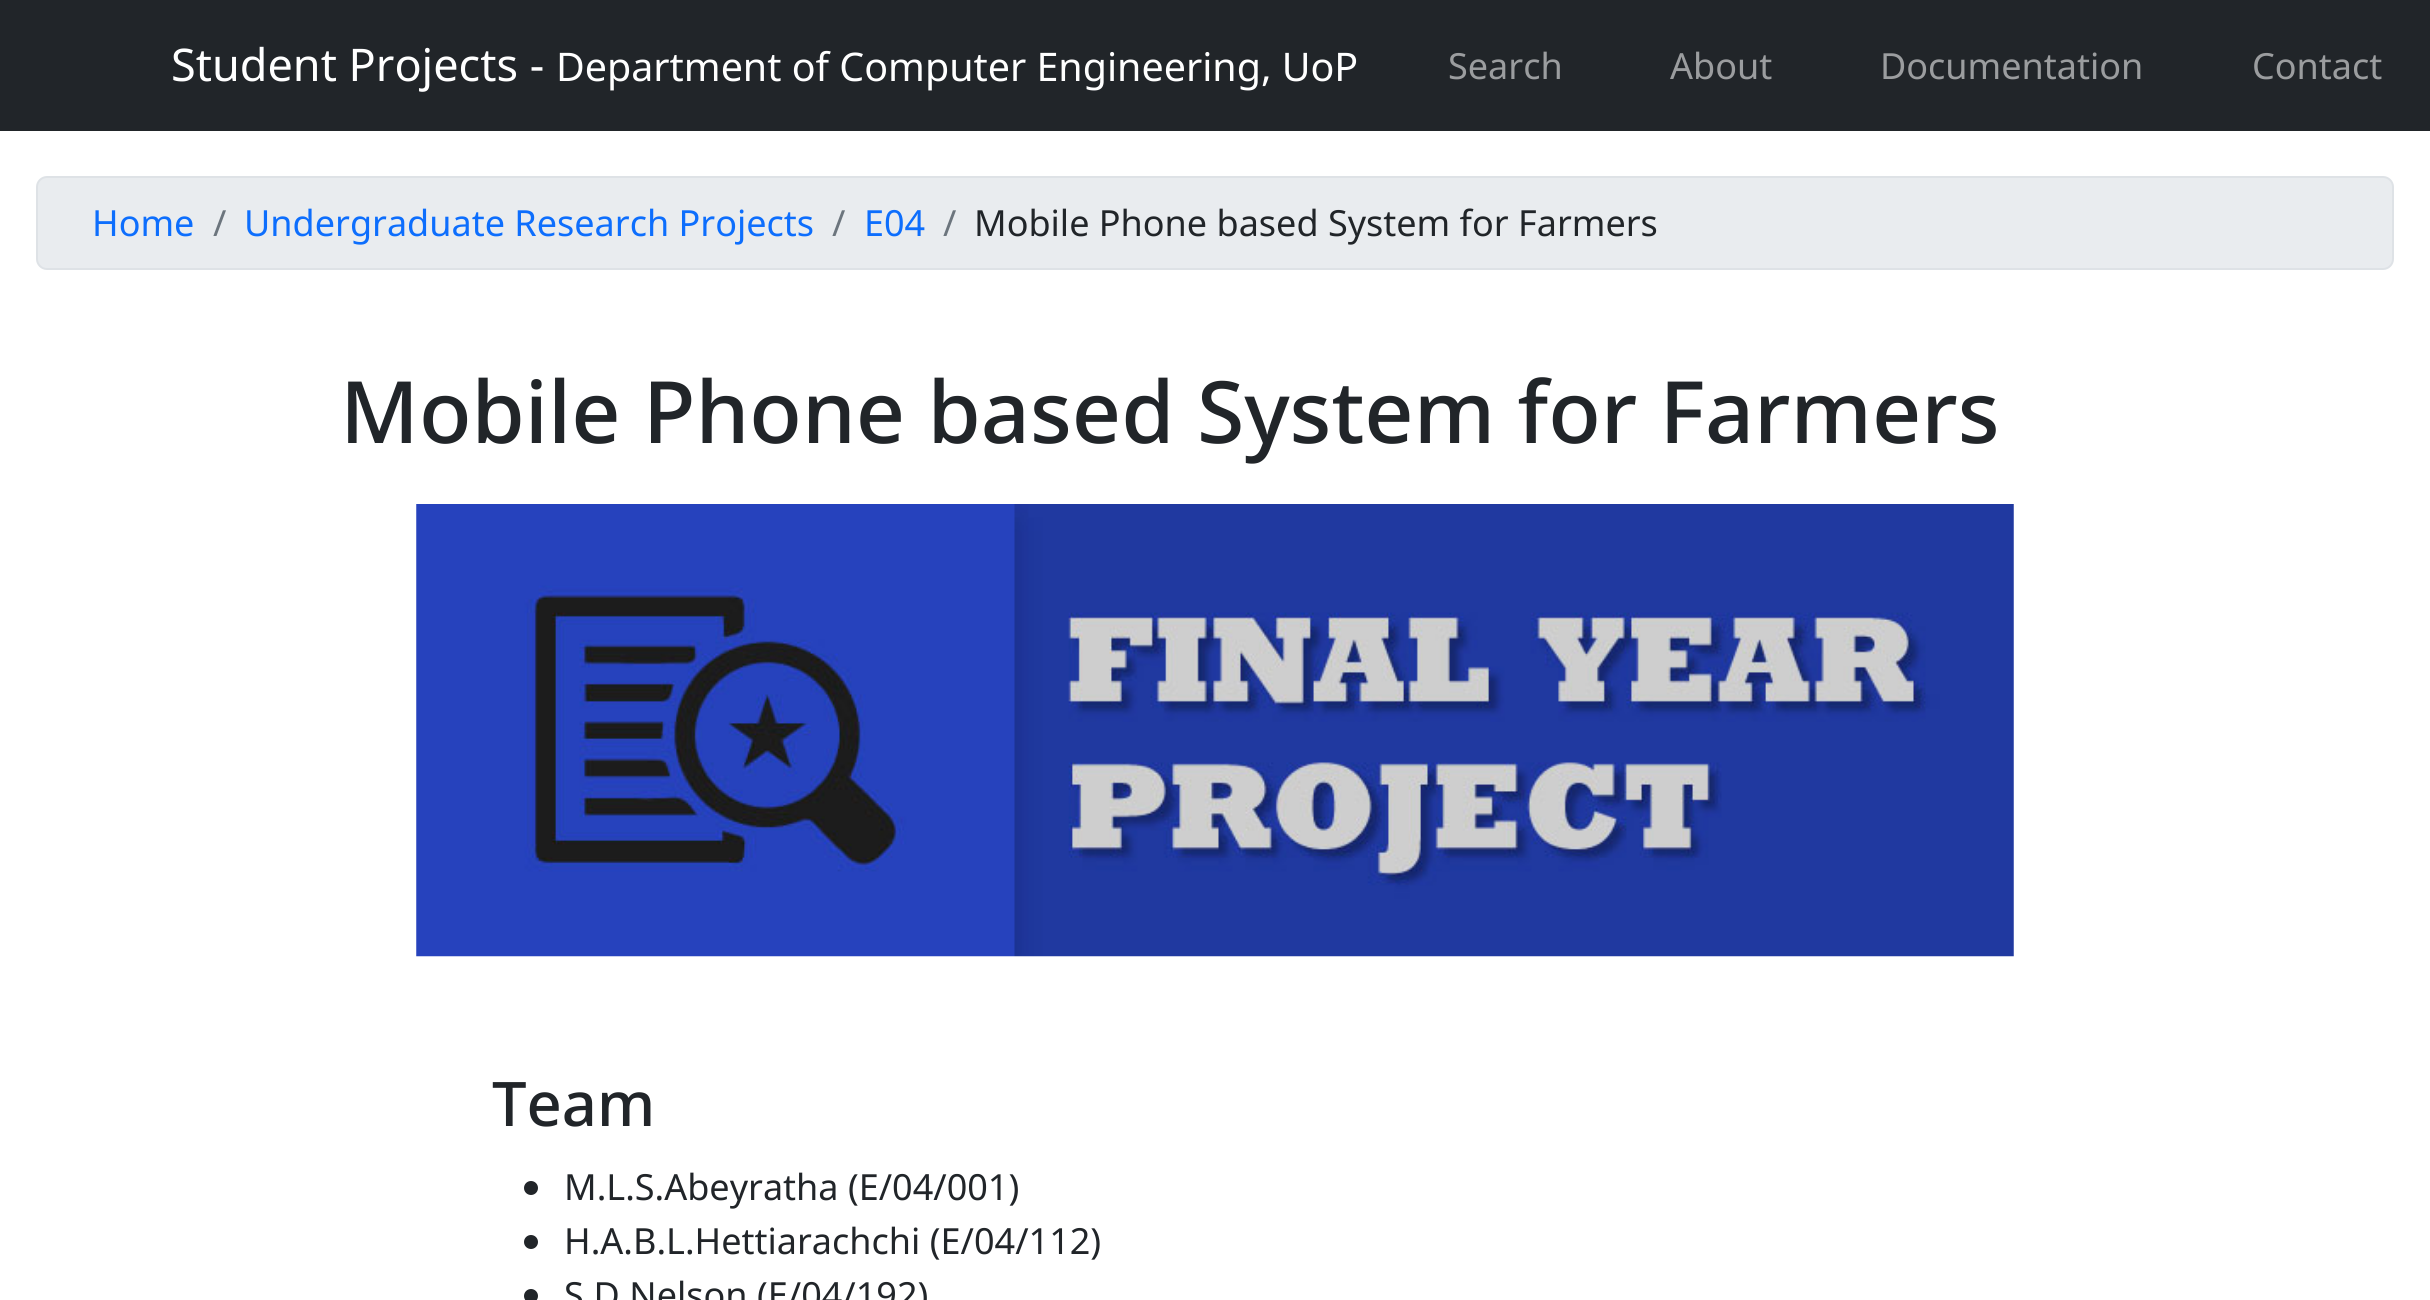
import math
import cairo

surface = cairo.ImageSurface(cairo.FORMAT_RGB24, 2430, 1300)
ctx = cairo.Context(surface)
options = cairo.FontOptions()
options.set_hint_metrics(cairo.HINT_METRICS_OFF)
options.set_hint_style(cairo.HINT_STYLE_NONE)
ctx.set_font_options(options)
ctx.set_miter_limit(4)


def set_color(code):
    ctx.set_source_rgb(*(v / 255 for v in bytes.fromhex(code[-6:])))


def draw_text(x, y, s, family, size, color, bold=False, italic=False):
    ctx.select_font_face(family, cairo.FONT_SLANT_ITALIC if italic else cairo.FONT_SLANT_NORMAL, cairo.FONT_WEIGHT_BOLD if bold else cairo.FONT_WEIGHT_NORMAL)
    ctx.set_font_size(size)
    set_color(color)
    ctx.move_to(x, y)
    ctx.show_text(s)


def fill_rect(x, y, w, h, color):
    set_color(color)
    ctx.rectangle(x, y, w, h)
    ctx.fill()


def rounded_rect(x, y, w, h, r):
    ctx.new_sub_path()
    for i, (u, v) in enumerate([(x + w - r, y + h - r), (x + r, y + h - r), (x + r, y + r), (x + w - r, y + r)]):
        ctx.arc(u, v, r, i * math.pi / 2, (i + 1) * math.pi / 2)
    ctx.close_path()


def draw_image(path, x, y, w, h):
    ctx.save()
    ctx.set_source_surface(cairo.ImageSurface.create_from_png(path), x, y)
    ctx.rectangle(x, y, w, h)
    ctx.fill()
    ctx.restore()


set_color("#ffffff")
ctx.paint()
fill_rect(0, 0, 2430, 131, "#212529")
draw_text(171, 81, "Student Projects -", "Noto Sans", 45, "#ffffff")
draw_text(556, 81, "Department of Computer Engineering, UoP", "Noto Sans", 39.4, "#ffffff")
draw_text(1448, 79, "Search", "Noto Sans", 36, "#9b9d9f")
draw_text(1670, 79, "About", "Noto Sans", 36, "#9b9d9f")
draw_text(1880, 79, "Documentation", "Noto Sans", 36, "#9b9d9f")
draw_text(2252, 79, "Contact", "Noto Sans", 36, "#9b9d9f")
set_color("#e9ecef")
rounded_rect(37, 177, 2356, 92, 10)
ctx.fill_preserve()
set_color("#dee2e6")
ctx.stroke()
draw_text(92, 236, "Home", "Noto Sans", 36, "#0d6efd")
draw_text(213, 236, "/", "Noto Sans", 36, "#6c757d")
draw_text(244, 236, "Undergraduate Research Projects", "Noto Sans", 36, "#0d6efd")
draw_text(832, 236, "/", "Noto Sans", 36, "#6c757d")
draw_text(864, 236, "E04", "Noto Sans", 36, "#0d6efd")
draw_text(943, 236, "/", "Noto Sans", 36, "#6c757d")
draw_text(974, 236, "Mobile Phone based System for Farmers", "Noto Sans", 36, "#212529")
draw_text(340, 443, "Mobile Phone based System for Farmers", "Noto Sans Medium", 86, "#212529")
draw_image("assets/img1.png", 416, 504, 1598, 453)
draw_text(492, 1126, "Team", "Noto Sans Medium", 61.5, "#212529")
ctx.new_path()
ctx.arc(531, 1188, 7, 0, 2 * math.pi)
ctx.fill()
draw_text(564, 1200, "M.L.S.Abeyratha (E/04/001)", "Noto Sans", 36, "#212529")
ctx.new_path()
ctx.arc(531, 1242, 7, 0, 2 * math.pi)
ctx.fill()
draw_text(564, 1254, "H.A.B.L.Hettiarachchi (E/04/112)", "Noto Sans", 36, "#212529")
ctx.new_path()
ctx.arc(531, 1296, 7, 0, 2 * math.pi)
ctx.fill()
draw_text(564, 1308, "S.D.Nelson (E/04/192)", "Noto Sans", 36, "#212529")
surface.write_to_png("output.png")
